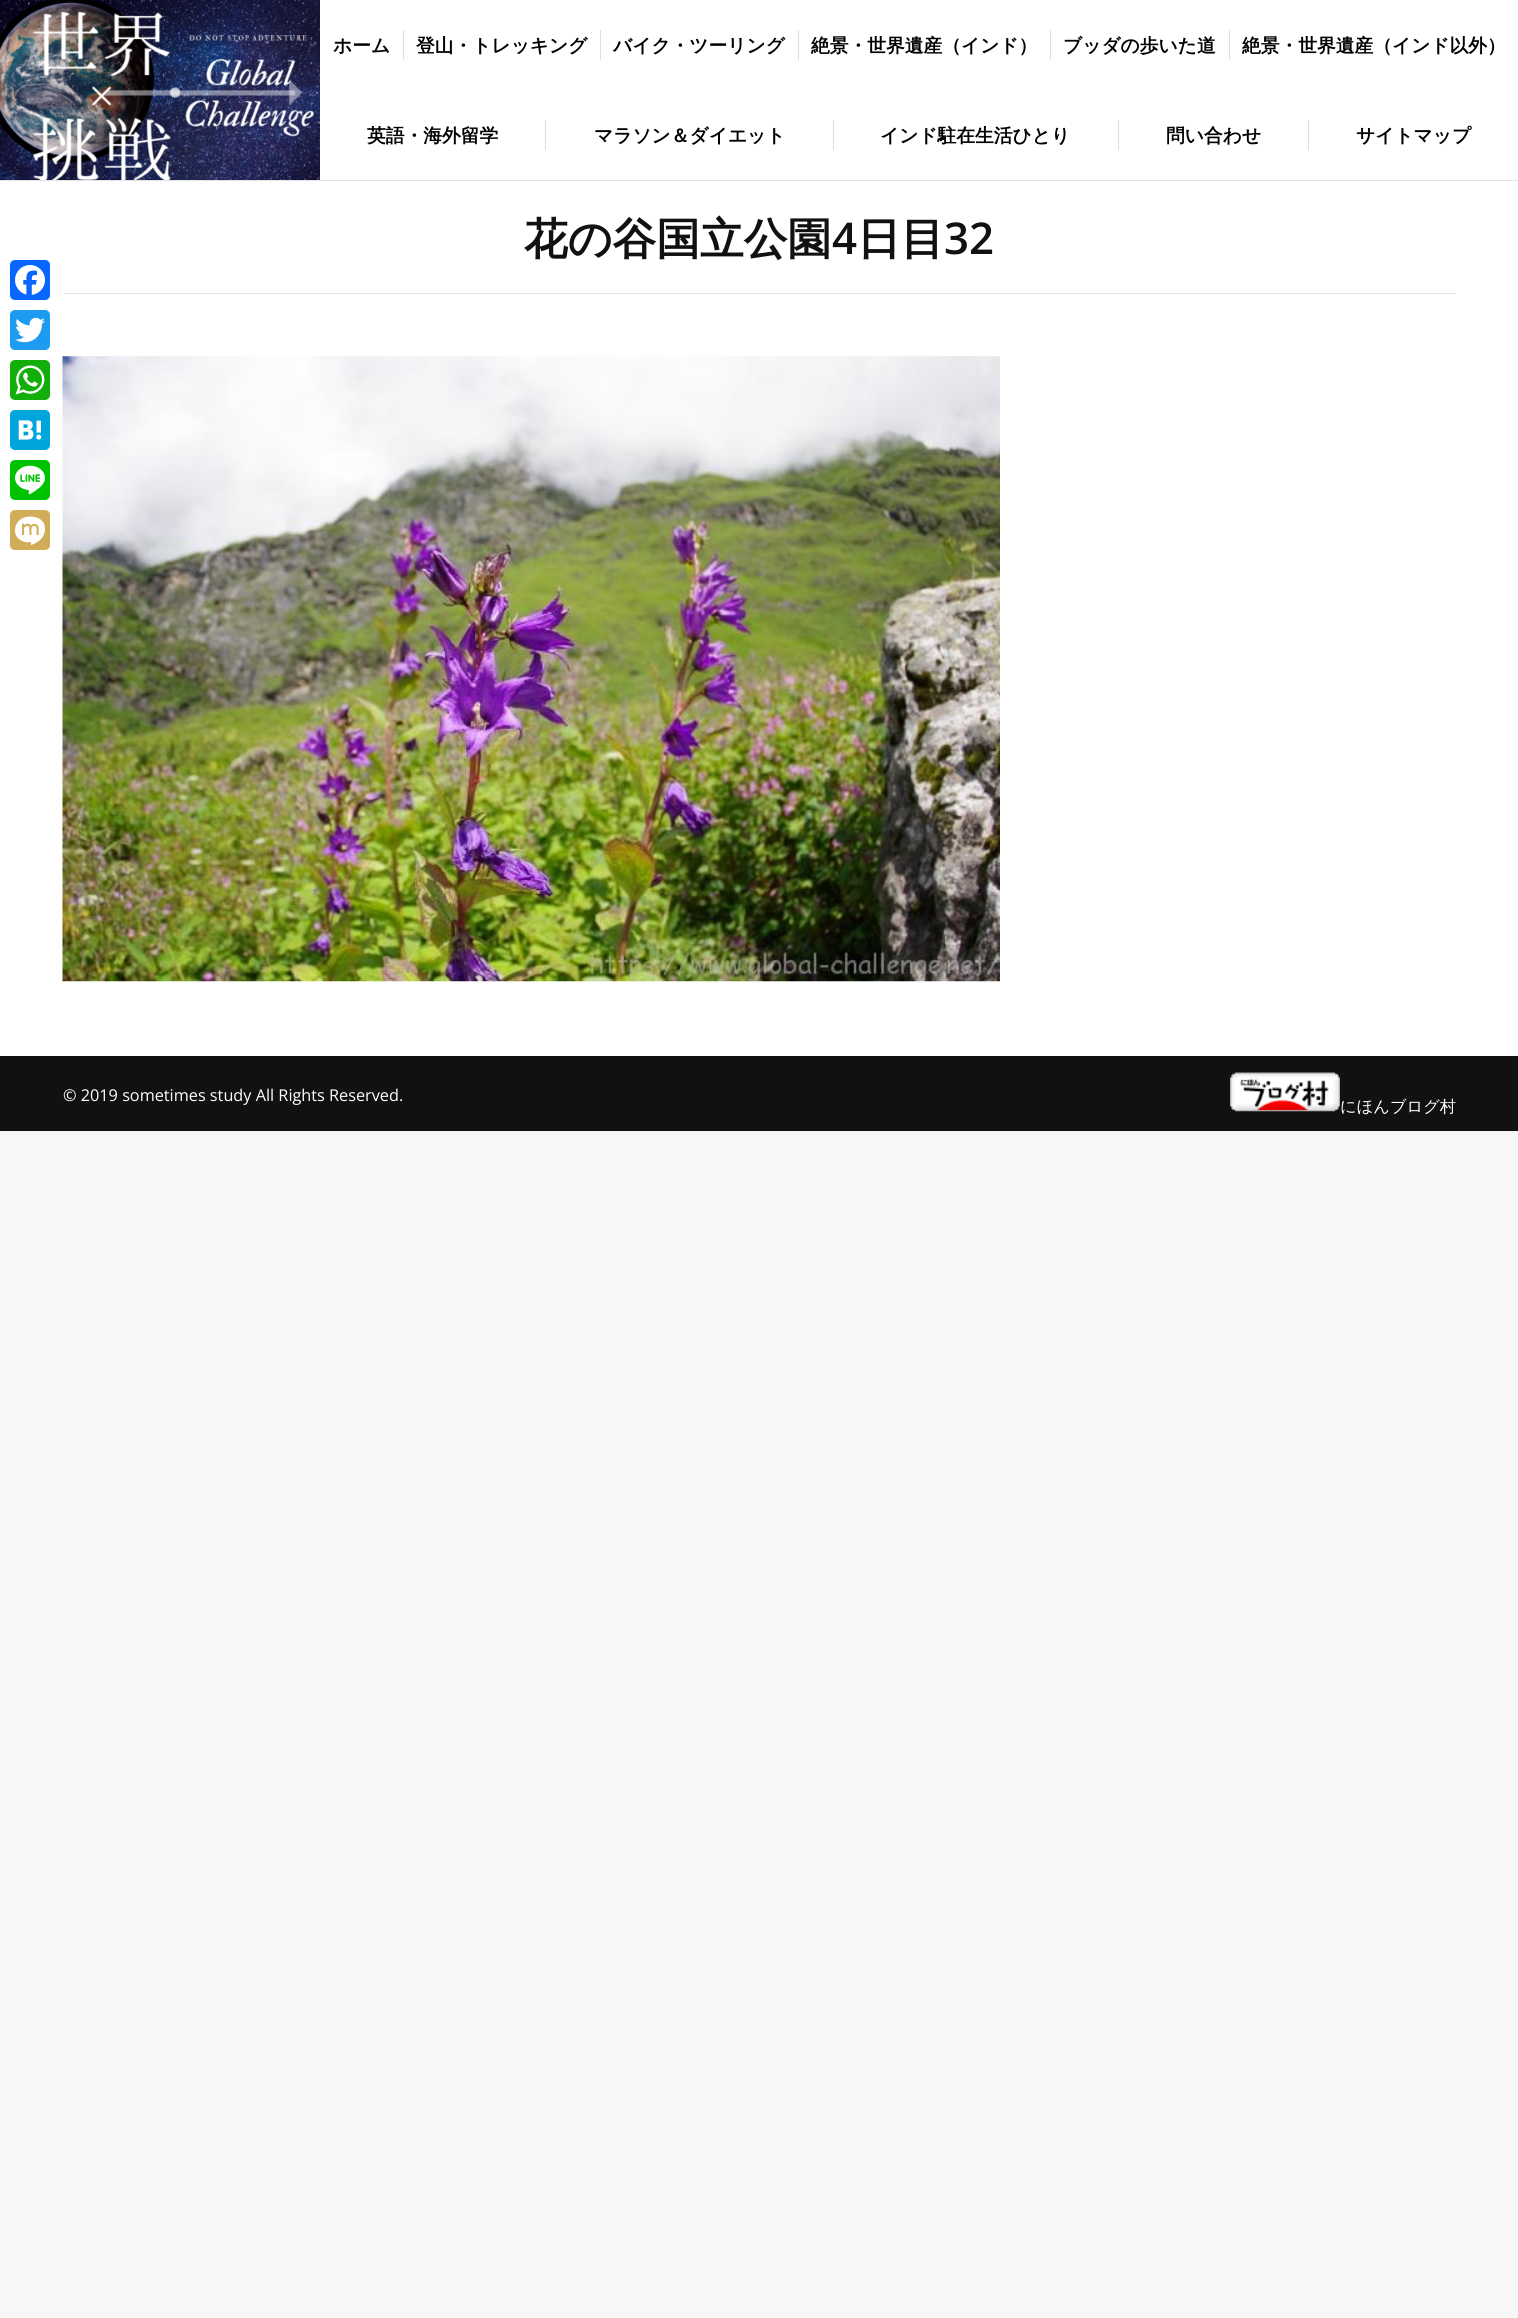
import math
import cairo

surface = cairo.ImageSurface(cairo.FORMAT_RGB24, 1518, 2318)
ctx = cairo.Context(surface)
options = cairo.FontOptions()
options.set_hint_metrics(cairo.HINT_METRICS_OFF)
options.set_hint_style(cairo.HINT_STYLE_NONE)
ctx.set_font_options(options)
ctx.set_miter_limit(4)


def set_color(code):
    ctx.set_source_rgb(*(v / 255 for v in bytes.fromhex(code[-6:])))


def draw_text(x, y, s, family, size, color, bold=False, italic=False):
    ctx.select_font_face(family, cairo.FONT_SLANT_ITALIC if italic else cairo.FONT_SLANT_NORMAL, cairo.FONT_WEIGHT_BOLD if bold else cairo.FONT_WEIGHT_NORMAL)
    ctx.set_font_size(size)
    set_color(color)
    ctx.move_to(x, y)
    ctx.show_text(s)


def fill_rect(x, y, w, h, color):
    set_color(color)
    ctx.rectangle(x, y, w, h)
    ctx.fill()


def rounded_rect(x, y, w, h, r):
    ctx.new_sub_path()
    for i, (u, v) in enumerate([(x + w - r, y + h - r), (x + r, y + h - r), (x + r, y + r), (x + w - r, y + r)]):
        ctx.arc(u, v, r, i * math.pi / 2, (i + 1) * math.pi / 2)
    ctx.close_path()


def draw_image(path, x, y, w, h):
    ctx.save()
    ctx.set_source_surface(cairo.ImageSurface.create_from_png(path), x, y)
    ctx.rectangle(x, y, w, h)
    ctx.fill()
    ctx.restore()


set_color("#f7f7f7")
ctx.paint()
fill_rect(0, 0, 1518, 1056, "#ffffff")
set_color("#0866ff")
rounded_rect(10, 260, 40, 40, 5)
ctx.fill()
draw_image("assets/img1.png", 15, 265, 30, 30)
set_color("#1d9bf0")
rounded_rect(10, 310, 40, 40, 5)
ctx.fill()
draw_image("assets/img2.png", 15, 317, 30, 26)
set_color("#12af0a")
rounded_rect(10, 360, 40, 40, 5)
ctx.fill()
draw_image("assets/img3.png", 15, 365, 30, 30)
set_color("#00a6db")
rounded_rect(10, 410, 40, 40, 5)
ctx.fill()
draw_image("assets/img4.png", 18, 420, 24, 20)
set_color("#00c300")
rounded_rect(10, 460, 40, 40, 5)
ctx.fill()
draw_image("assets/img5.png", 15, 465, 30, 30)
set_color("#d1ad5a")
rounded_rect(10, 510, 40, 40, 5)
ctx.fill()
draw_image("assets/img6.png", 15, 516, 30, 29)
fill_rect(0, 180, 1518, 1, "#e3e3e3")
draw_image("assets/img7.png", 0, 0, 320, 180)
ctx.set_source_rgba(0.067, 0.067, 0.067, 0.14)
ctx.rectangle(319, 30, 1, 30)
ctx.fill()
draw_text(333, 52, "ホーム", "WenQuanYi Zen Hei", 18.75, "#000000", bold=True)
fill_rect(403, 30, 1, 30, "#dedede")
draw_text(416, 52, "登山・トレッキング", "WenQuanYi Zen Hei", 18.75, "#000000", bold=True)
fill_rect(600, 30, 1, 30, "#dedede")
draw_text(613, 52, "バイク・ツーリング", "WenQuanYi Zen Hei", 18.75, "#000000", bold=True)
fill_rect(798, 30, 1, 30, "#dedede")
draw_text(811, 52, "絶景・世界遺産（インド）", "WenQuanYi Zen Hei", 18.75, "#000000", bold=True)
fill_rect(1050, 30, 1, 30, "#dedede")
draw_text(1063, 52, "ブッダの歩いた道", "WenQuanYi Zen Hei", 18.75, "#000000", bold=True)
fill_rect(1229, 30, 1, 30, "#dedede")
draw_text(1242, 52, "絶景・世界遺産（インド以外）", "WenQuanYi Zen Hei", 18.75, "#000000", bold=True)
ctx.set_source_rgba(0.067, 0.067, 0.067, 0.14)
ctx.rectangle(319, 120, 1, 30)
ctx.fill()
draw_text(367, 142, "英語・海外留学", "WenQuanYi Zen Hei", 18.75, "#000000", bold=True)
fill_rect(545, 120, 1, 30, "#dedede")
draw_text(594, 142, "マラソン＆ダイエット", "WenQuanYi Zen Hei", 18.75, "#000000", bold=True)
fill_rect(833, 120, 1, 30, "#dedede")
draw_text(880, 142, "インド駐在生活ひとり", "WenQuanYi Zen Hei", 18.75, "#000000", bold=True)
fill_rect(1118, 120, 1, 30, "#dedede")
draw_text(1166, 142, "問い合わせ", "WenQuanYi Zen Hei", 18.75, "#000000", bold=True)
fill_rect(1308, 120, 1, 30, "#dedede")
draw_text(1356, 142, "サイトマップ", "WenQuanYi Zen Hei", 18.75, "#000000", bold=True)
draw_text(524, 254, "花の谷国立公園", "WenQuanYi Zen Hei", 43.75, "#111111", bold=True)
draw_text(832, 254, "4", "Open Sans SemiBold", 43.75, "#111111")
draw_text(857, 254, "日目", "WenQuanYi Zen Hei", 43.75, "#111111", bold=True)
draw_text(944, 254, "32", "Open Sans SemiBold", 43.75, "#111111")
fill_rect(63, 293, 1393, 1, "#e3e3e3")
draw_image("assets/img8.png", 62, 356, 938, 626)
fill_rect(0, 1056, 1518, 75, "#111111")
draw_text(63, 1101, "© 2019 sometimes study All Rights Reserved.", "Open Sans", 16.25, "#ffffff")
draw_image("assets/img9.png", 1230, 1072, 110, 40)
draw_text(1340, 1112, "にほんブログ村", "WenQuanYi Zen Hei Medium", 16.25, "#ffffff")
surface.write_to_png("output.png")
